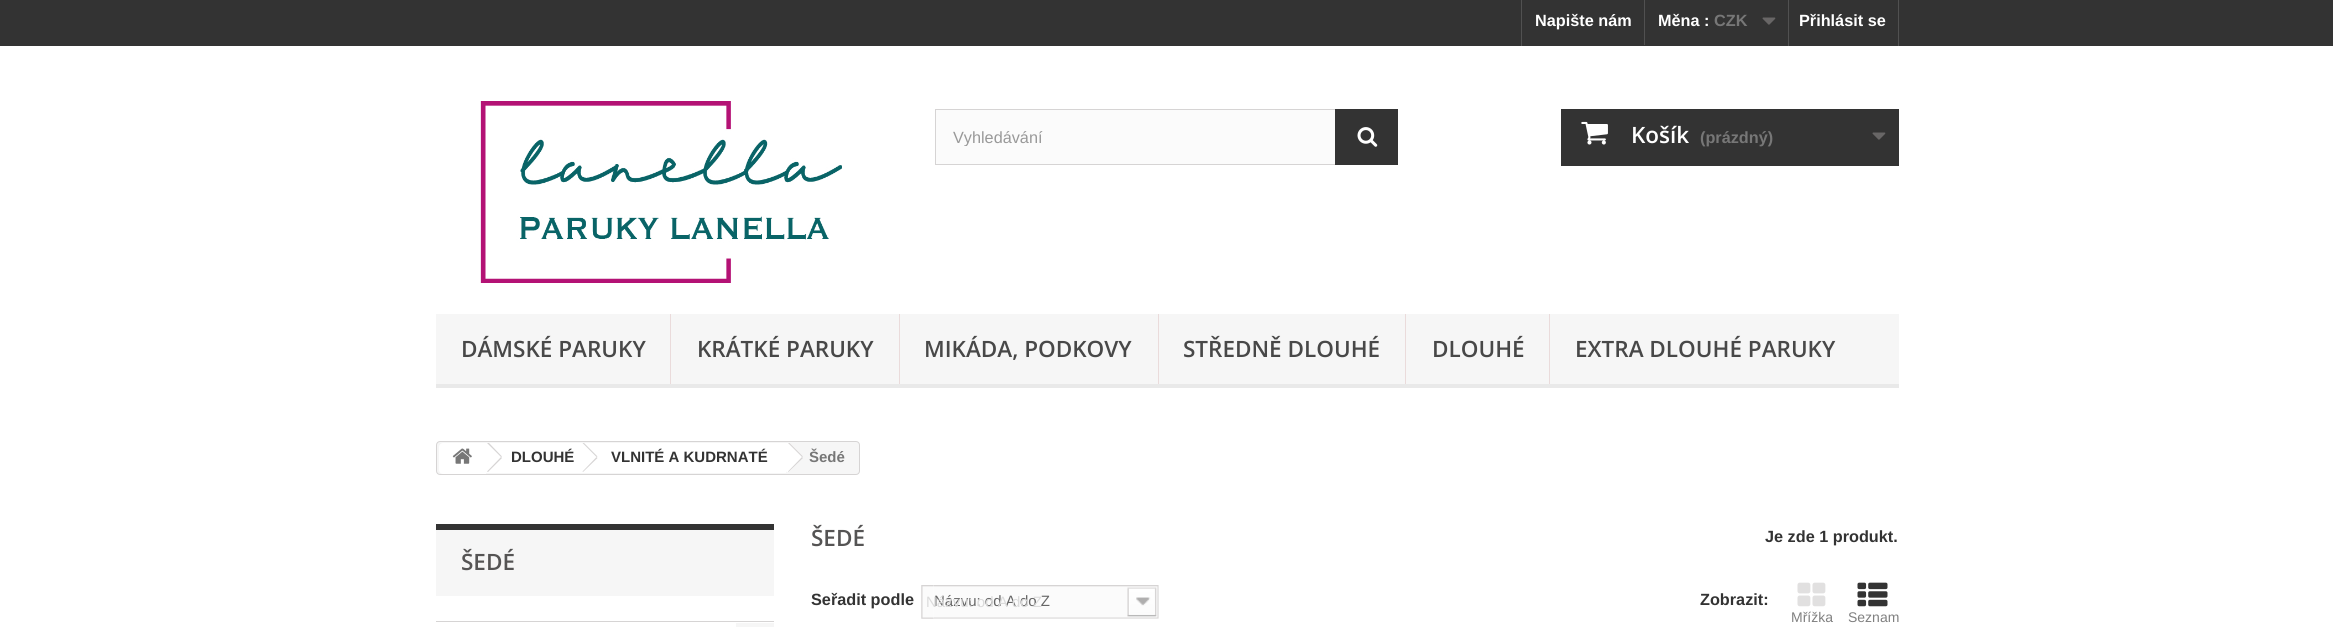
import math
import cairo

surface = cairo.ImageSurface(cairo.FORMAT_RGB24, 2333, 627)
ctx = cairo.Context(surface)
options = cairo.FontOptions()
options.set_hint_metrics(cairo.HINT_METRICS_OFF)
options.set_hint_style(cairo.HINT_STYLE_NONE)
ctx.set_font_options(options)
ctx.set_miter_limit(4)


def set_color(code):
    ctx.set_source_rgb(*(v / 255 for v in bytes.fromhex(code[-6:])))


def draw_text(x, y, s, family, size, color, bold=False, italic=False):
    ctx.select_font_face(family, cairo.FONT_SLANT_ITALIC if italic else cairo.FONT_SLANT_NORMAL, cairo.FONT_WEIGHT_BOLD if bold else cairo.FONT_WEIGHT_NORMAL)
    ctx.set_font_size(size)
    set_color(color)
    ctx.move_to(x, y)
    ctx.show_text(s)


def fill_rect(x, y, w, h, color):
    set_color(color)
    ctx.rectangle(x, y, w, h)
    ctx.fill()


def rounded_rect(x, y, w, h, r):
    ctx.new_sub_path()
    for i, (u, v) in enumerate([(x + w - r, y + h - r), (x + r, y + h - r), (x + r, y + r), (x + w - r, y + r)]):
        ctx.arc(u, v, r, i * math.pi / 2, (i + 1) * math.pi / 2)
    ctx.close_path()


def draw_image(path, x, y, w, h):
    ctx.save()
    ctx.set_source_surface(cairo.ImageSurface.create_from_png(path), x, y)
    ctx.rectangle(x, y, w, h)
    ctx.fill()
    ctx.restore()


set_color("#ffffff")
ctx.paint()
fill_rect(0, 0, 2333, 46, "#333333")
fill_rect(1521, 0, 1, 46, "#515151")
draw_text(1535, 26, "Napište nám", "Liberation Sans", 16.25, "#ffffff", bold=True)
fill_rect(1644, 0, 1, 45, "#515151")
draw_text(1658, 26, "Měna :", "Liberation Sans", 16.25, "#ffffff", bold=True)
draw_text(1714, 26, "CZK", "Liberation Sans", 16.25, "#777777", bold=True)
draw_image("assets/img1.png", 1762, 17, 14, 8)
fill_rect(1898, 0, 1, 46, "#515151")
fill_rect(1788, 0, 1, 46, "#515151")
draw_text(1799, 26, "Přihlásit se", "Liberation Sans", 16.25, "#ffffff", bold=True)
draw_image("assets/img2.png", 480, 101, 362, 182)
fill_rect(936, 110, 399, 54, "#fbfbfb")
ctx.rectangle(935.5, 109.5, 462, 55)
set_color("#d6d4d4")
ctx.set_line_width(1)
ctx.stroke()
ctx.save()
ctx.rectangle(953, 128, 368, 18)
ctx.clip()
draw_text(953, 143, "Vyhledávání", "Liberation Sans", 16.25, "#999999")
ctx.restore()
fill_rect(1335, 109, 63, 56, "#333333")
draw_image("assets/img3.png", 1357, 127, 21, 20)
fill_rect(1561, 109, 338, 57, "#333333")
draw_image("assets/img4.png", 1581, 121, 27, 24)
draw_text(1631, 143, "Košík", "Open Sans SemiBold", 22.5, "#ffffff")
draw_text(1700, 143, "(prázdný)", "Liberation Sans", 16.25, "#777777", bold=True)
draw_image("assets/img1.png", 1872, 132, 14, 8)
fill_rect(436, 314, 1463, 70, "#f6f6f6")
fill_rect(436, 384, 1463, 4, "#e9e9e9")
fill_rect(670, 314, 1, 70, "#eadbdb")
draw_text(461, 357, "DÁMSKÉ PARUKY", "Open Sans SemiBold", 22.5, "#484848")
fill_rect(899, 314, 1, 70, "#eadbdb")
draw_text(697, 357, "KRÁTKÉ PARUKY", "Open Sans SemiBold", 22.5, "#484848")
fill_rect(1158, 314, 1, 70, "#eadbdb")
draw_text(924, 357, "MIKÁDA, PODKOVY", "Open Sans SemiBold", 22.5, "#484848")
fill_rect(1405, 314, 1, 70, "#eadbdb")
draw_text(1183, 357, "STŘEDNĚ DLOUHÉ", "Open Sans SemiBold", 22.5, "#484848")
fill_rect(1549, 314, 1, 70, "#eadbdb")
draw_text(1432, 357, "DLOUHÉ", "Open Sans SemiBold", 22.5, "#484848")
draw_text(1575, 357, "EXTRA DLOUHÉ PARUKY", "Open Sans SemiBold", 22.5, "#484848")
set_color("#f6f6f6")
rounded_rect(436.5, 441.5, 423, 33, 3.5)
ctx.fill_preserve()
set_color("#d6d4d4")
ctx.stroke()
set_color("#ffffff")
ctx.new_path()
ctx.move_to(443, 443)
ctx.line_to(486, 443)
ctx.line_to(486, 474)
ctx.line_to(443, 474)
ctx.curve_to(441, 474, 439, 472, 439, 470)
ctx.line_to(439, 447)
ctx.curve_to(439, 445, 441, 443, 443, 443)
ctx.close_path()
ctx.fill()
draw_image("assets/img5.png", 452, 448, 20, 16)
fill_rect(486, 443, 98, 30, "#ffffff")
set_color("#d6d4d4")
ctx.new_path()
ctx.move_to(489, 443)
ctx.line_to(502, 456.5)
ctx.line_to(501, 457)
ctx.line_to(487, 443)
ctx.close_path()
ctx.move_to(501, 457)
ctx.line_to(502, 458)
ctx.line_to(488, 472)
ctx.line_to(487, 471.5)
ctx.close_path()
ctx.fill()
draw_text(511, 462, "DLOUHÉ", "Liberation Sans", 15, "#333333", bold=True)
set_color("#ffffff")
ctx.new_path()
ctx.move_to(596.5, 443)
ctx.line_to(593, 443)
ctx.line_to(580.5, 455.5)
ctx.curve_to(579.5, 456.5, 579.5, 458, 580.5, 459)
ctx.line_to(593, 471.5)
ctx.curve_to(594, 472.5, 595.5, 472.5, 596.5, 471.5)
ctx.line_to(609, 459)
ctx.curve_to(610, 458, 610, 456.5, 609, 455.5)
ctx.close_path()
ctx.fill()
fill_rect(584, 443, 202, 30, "#ffffff")
set_color("#d6d4d4")
ctx.new_path()
ctx.move_to(584, 443)
ctx.line_to(597.5, 456.5)
ctx.line_to(596.5, 457)
ctx.line_to(582.5, 443)
ctx.close_path()
ctx.move_to(596.5, 457)
ctx.line_to(597.5, 458)
ctx.line_to(583, 472)
ctx.line_to(582.5, 471.5)
ctx.close_path()
ctx.fill()
draw_text(611, 462, "VLNITÉ A KUDRNATÉ", "Liberation Sans", 15, "#333333", bold=True)
set_color("#ffffff")
ctx.new_path()
ctx.move_to(789.5, 443)
ctx.line_to(786, 443)
ctx.line_to(773.5, 455.5)
ctx.curve_to(772.5, 456.5, 772.5, 458, 773.5, 459)
ctx.line_to(786, 471.5)
ctx.curve_to(787, 472.5, 788.5, 472.5, 789.5, 471.5)
ctx.line_to(802, 459)
ctx.curve_to(803, 458, 803, 456.5, 802, 455.5)
ctx.close_path()
ctx.fill()
set_color("#d6d4d4")
ctx.new_path()
ctx.move_to(789.5, 443)
ctx.line_to(803, 456.5)
ctx.line_to(802, 457)
ctx.line_to(788, 443)
ctx.close_path()
ctx.move_to(802, 457)
ctx.line_to(803, 458)
ctx.line_to(788.5, 472)
ctx.line_to(788, 471.5)
ctx.close_path()
ctx.fill()
draw_text(809, 462, "Šedé", "Liberation Sans", 15, "#777777", bold=True)
fill_rect(436, 530, 338, 66, "#f6f6f6")
fill_rect(436, 524, 338, 6, "#333333")
draw_text(461, 570, "ŠEDÉ", "Open Sans SemiBold", 22.5, "#555454")
fill_rect(436, 621, 338, 1, "#d6d4d4")
fill_rect(736, 623, 38, 4, "#f6f6f6")
draw_text(811, 546, "ŠEDÉ", "Open Sans SemiBold", 22.5, "#555454")
draw_text(1765, 542, "Je zde 1 produkt.", "Liberation Sans", 16.25, "#333333", bold=True)
draw_text(811, 605, "Seřadit podle", "Liberation Sans", 16.25, "#333333", bold=True)
draw_image("assets/img6.png", 921, 585, 13, 34)
draw_image("assets/img7.png", 934, 585, 225, 34)
draw_text(934, 606, "Názvu: od A do Z", "Liberation Sans", 15, "#666666")
draw_text(926, 607, "Názvu: od A do Z", "Liberation Sans", 15, "#dbdbdb")
draw_text(1700, 605, "Zobrazit:", "Liberation Sans", 16.25, "#333333", bold=True)
draw_image("assets/img8.png", 1797, 582, 29, 25)
draw_text(1791, 622, "Mřížka", "Liberation Sans", 14, "#808080")
draw_image("assets/img9.png", 1857, 582, 31, 25)
draw_text(1848, 622, "Seznam", "Liberation Sans", 14, "#808080")
surface.write_to_png("output.png")
